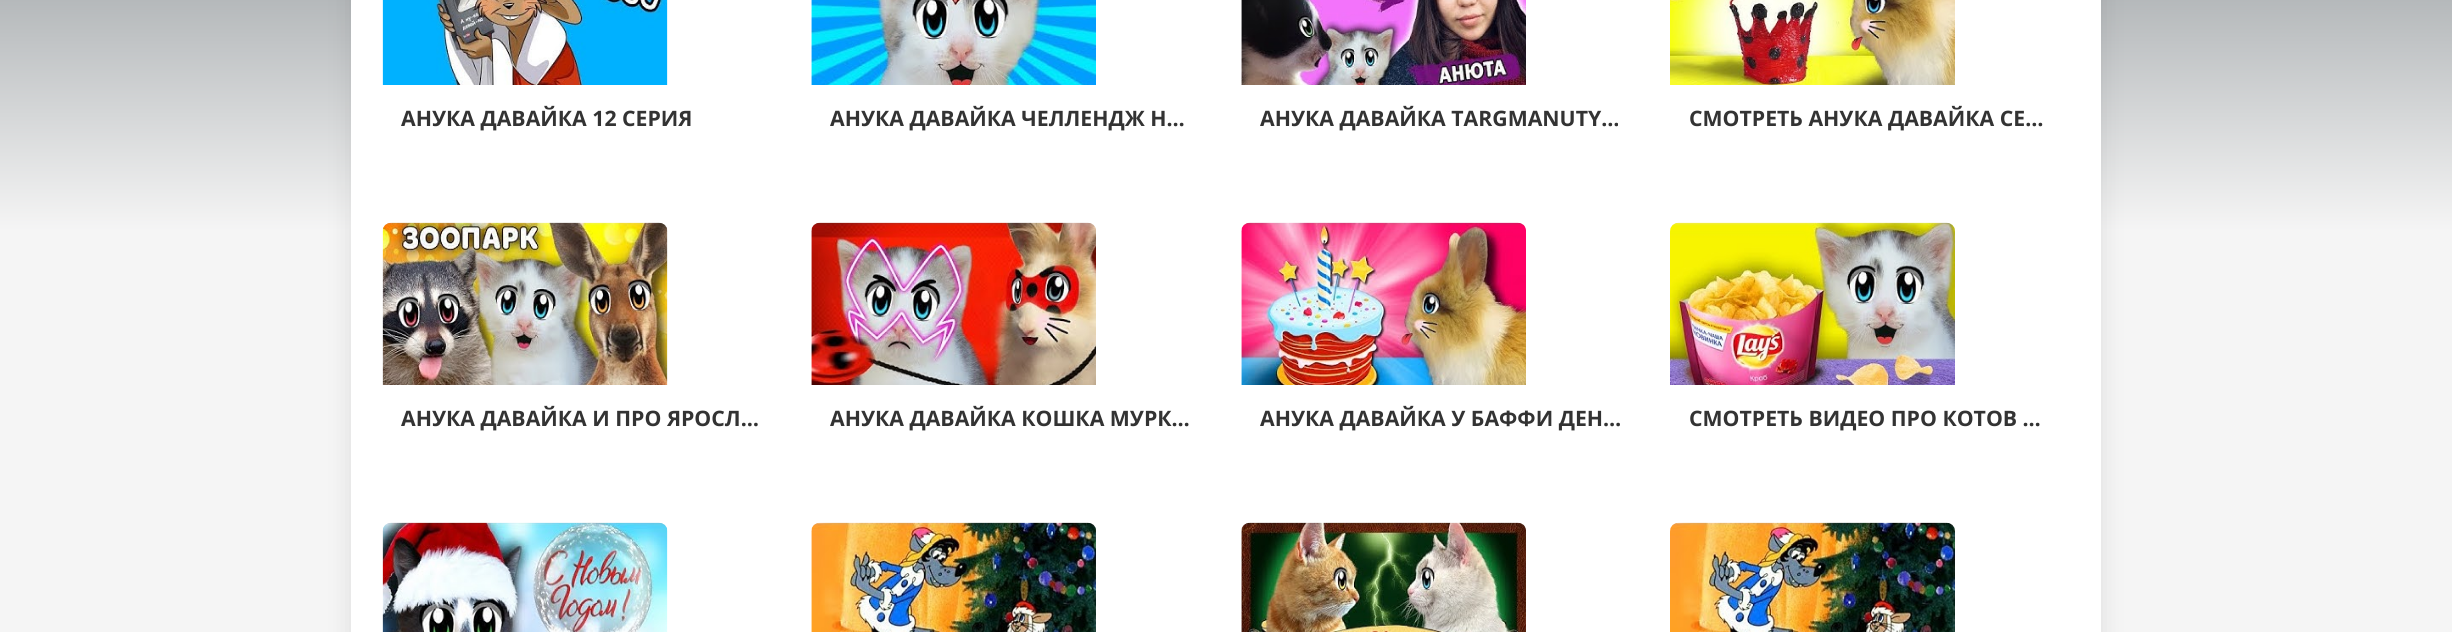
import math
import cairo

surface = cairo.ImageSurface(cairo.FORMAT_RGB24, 2452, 632)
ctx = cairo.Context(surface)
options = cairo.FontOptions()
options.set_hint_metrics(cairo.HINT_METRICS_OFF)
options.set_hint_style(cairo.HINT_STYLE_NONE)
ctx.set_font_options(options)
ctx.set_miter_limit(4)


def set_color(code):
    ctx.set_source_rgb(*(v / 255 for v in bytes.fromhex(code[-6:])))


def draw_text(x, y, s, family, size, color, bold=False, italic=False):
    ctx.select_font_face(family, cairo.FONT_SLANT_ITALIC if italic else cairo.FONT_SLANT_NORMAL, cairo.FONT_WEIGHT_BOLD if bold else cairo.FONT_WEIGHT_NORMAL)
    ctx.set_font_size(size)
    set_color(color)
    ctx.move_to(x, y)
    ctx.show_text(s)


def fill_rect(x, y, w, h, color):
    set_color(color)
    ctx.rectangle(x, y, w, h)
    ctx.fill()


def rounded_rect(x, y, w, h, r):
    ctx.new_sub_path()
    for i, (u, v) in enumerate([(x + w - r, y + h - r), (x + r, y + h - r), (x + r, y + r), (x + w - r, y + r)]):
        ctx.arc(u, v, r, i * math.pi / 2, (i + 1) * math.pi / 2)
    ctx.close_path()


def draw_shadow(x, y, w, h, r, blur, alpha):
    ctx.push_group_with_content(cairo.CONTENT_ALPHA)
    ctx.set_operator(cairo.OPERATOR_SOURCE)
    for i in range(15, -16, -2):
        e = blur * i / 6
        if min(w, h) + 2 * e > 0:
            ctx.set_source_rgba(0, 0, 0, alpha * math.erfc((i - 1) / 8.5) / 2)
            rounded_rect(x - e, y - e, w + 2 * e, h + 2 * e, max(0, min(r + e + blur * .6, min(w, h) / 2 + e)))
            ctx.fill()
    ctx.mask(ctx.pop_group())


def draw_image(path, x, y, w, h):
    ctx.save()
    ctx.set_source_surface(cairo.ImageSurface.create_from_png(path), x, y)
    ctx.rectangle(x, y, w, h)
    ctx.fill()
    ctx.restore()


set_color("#ffffff")
ctx.paint()
gradient = cairo.LinearGradient(1226, -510, 1226, 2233)
gradient.add_color_stop_rgba(0, 0.157, 0.204, 0.231, 1)
gradient.add_color_stop_rgba(0.27, 0.961, 0.961, 0.961, 1)
ctx.set_source(gradient)
ctx.rectangle(0, 0, 2452, 632)
ctx.fill()
set_color("#000000")
draw_shadow(351, -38, 1750, 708, 0, 12.5, 0.1)
fill_rect(351, 0, 1750, 632, "#ffffff")
draw_image("assets/img1.png", 382, 0, 286, 85)
draw_text(401, 126, "АНУКА ДАВАЙКА 12 СЕРИЯ", "Open Sans", 21.25, "#333333", bold=True)
draw_image("assets/img2.png", 811, 0, 285, 85)
draw_text(830, 126, "АНУКА ДАВАЙКА ЧЕЛЛЕНДЖ Н…", "Open Sans", 21.25, "#333333", bold=True)
draw_image("assets/img3.png", 1241, 0, 285, 85)
draw_text(1260, 126, "АНУКА ДАВАЙКА TARGMANUTY…", "Open Sans", 21.25, "#333333", bold=True)
draw_image("assets/img4.png", 1670, 0, 285, 85)
draw_text(1689, 126, "СМОТРЕТЬ АНУКА ДАВАЙКА СЕ…", "Open Sans", 21.25, "#333333", bold=True)
draw_image("assets/img5.png", 382, 222, 286, 163)
draw_text(401, 426, "АНУКА ДАВАЙКА И ПРО ЯРОСЛ…", "Open Sans", 21.25, "#333333", bold=True)
draw_image("assets/img6.png", 811, 222, 285, 163)
draw_text(830, 426, "АНУКА ДАВАЙКА КОШКА МУРК…", "Open Sans", 21.25, "#333333", bold=True)
draw_image("assets/img7.png", 1241, 222, 285, 163)
draw_text(1260, 426, "АНУКА ДАВАЙКА У БАФФИ ДЕН…", "Open Sans", 21.25, "#333333", bold=True)
draw_image("assets/img8.png", 1670, 222, 285, 163)
draw_text(1689, 426, "СМОТРЕТЬ ВИДЕО ПРО КОТОВ …", "Open Sans", 21.25, "#333333", bold=True)
draw_image("assets/img9.png", 382, 522, 286, 110)
draw_image("assets/img10.png", 811, 522, 285, 110)
draw_image("assets/img11.png", 1241, 522, 285, 110)
draw_image("assets/img12.png", 1670, 522, 285, 110)
surface.write_to_png("output.png")
